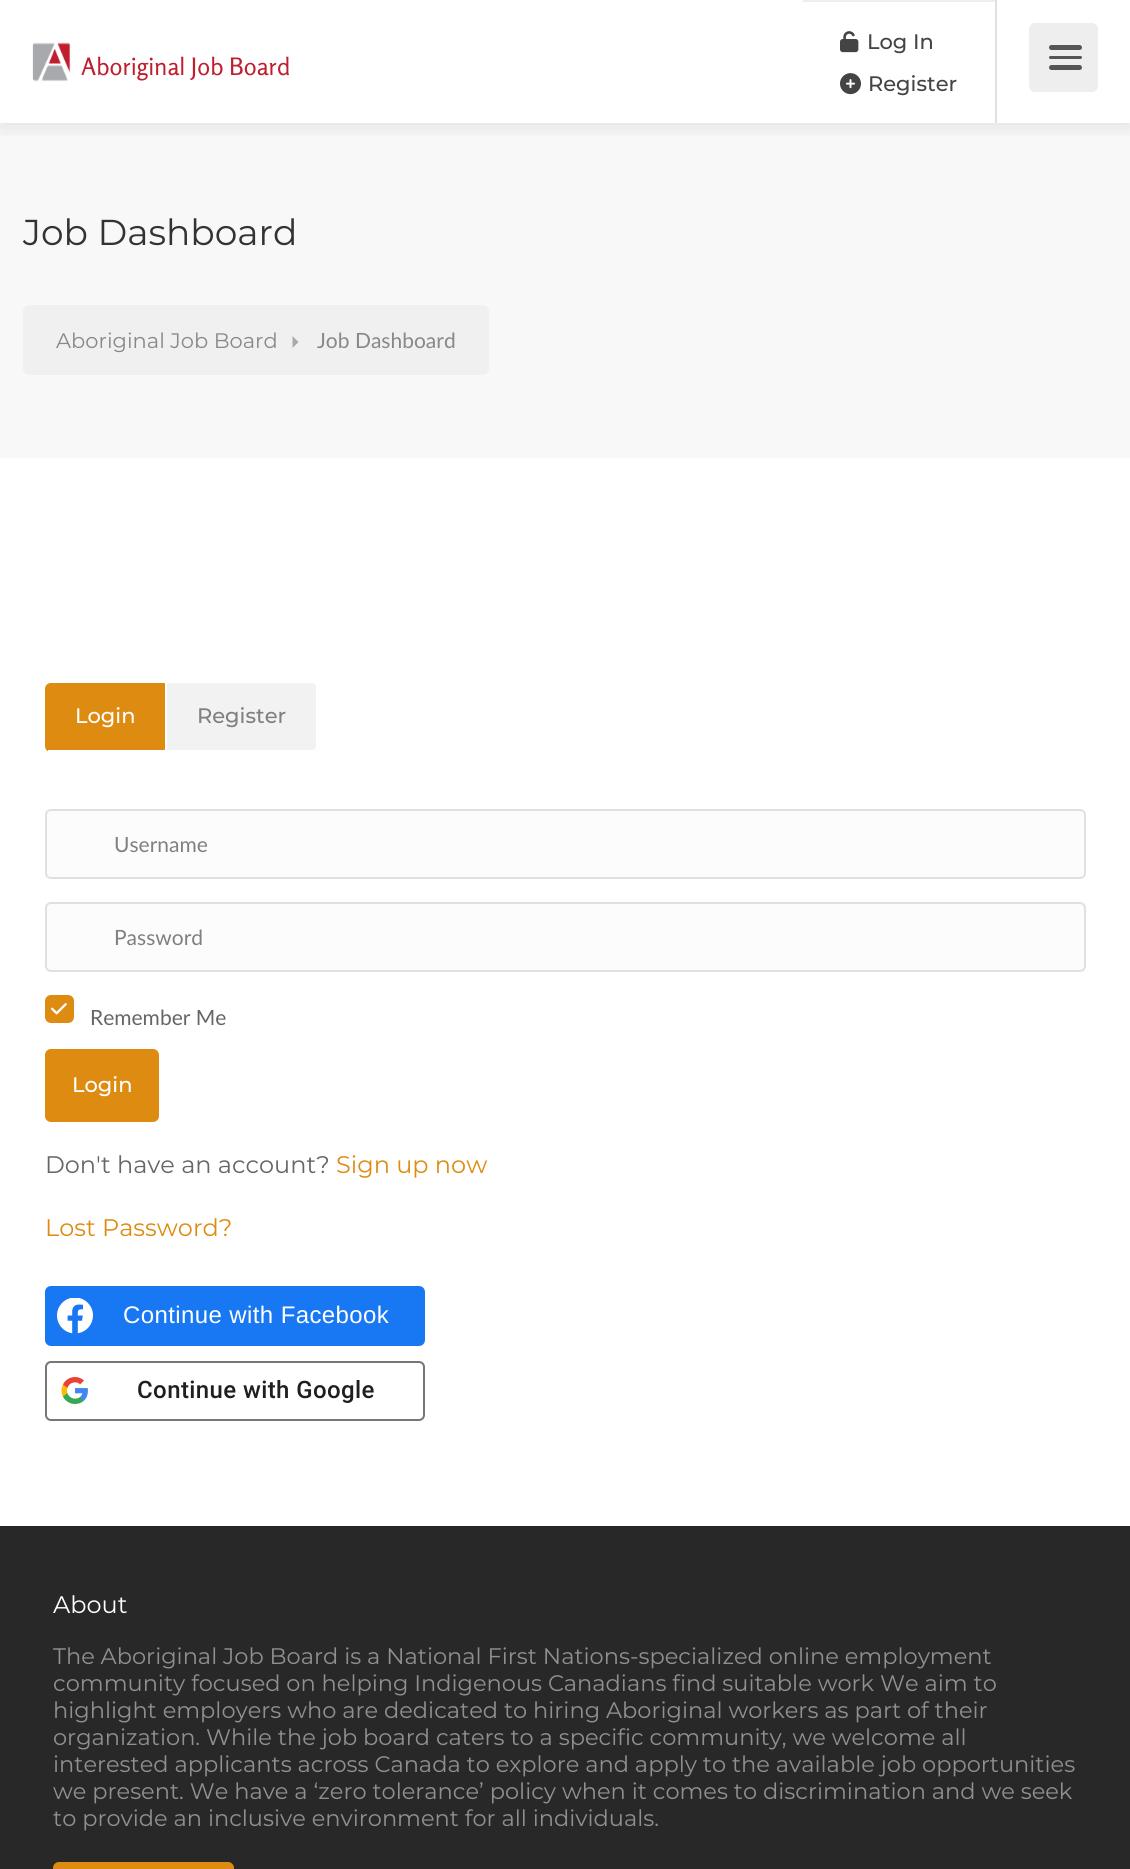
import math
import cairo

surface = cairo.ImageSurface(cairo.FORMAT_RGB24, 1130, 1869)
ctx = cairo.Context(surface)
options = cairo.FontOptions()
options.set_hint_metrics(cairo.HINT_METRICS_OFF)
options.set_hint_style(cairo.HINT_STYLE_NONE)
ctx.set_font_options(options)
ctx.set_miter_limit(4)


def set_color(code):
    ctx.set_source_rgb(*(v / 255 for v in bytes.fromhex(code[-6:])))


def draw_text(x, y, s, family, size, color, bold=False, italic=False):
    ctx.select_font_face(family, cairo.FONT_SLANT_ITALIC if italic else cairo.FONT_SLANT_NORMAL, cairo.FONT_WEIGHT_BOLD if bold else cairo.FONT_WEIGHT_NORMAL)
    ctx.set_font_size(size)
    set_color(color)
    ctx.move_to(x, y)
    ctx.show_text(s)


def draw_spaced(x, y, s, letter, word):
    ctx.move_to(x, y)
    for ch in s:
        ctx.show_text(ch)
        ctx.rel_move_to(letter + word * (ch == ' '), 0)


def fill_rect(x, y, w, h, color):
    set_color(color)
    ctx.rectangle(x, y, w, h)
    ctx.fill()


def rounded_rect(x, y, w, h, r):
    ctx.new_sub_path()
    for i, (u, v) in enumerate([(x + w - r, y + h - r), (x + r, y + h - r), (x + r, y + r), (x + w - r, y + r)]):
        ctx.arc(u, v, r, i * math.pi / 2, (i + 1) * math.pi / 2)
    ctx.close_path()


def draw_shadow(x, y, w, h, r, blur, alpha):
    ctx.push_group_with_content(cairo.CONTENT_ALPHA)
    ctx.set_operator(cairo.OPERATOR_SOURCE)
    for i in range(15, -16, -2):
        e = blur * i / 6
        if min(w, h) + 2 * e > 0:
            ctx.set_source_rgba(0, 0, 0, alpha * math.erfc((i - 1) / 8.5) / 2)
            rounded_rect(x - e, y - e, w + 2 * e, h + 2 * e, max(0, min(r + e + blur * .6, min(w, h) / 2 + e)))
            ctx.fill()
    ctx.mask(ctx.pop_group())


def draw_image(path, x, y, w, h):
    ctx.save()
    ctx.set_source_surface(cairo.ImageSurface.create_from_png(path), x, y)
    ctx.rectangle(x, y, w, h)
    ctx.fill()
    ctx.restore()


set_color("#ffffff")
ctx.paint()
fill_rect(0, 123, 1130, 335, "#f8f8f8")
ctx.save()
ctx.rectangle(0, 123, 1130, 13)
ctx.clip()
set_color("#000000")
draw_shadow(0, 0, 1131, 123, 0, 13.5, 0.12)
ctx.restore()
draw_image("assets/img1.png", 32, 42, 39, 40)
draw_text(81, 75, "Aboriginal Job Board", "Rosario", 24, "#bf1e2e")
fill_rect(803, 0, 193, 2, "#eeeeee")
fill_rect(995, 0, 2, 123, "#e0e0e0")
draw_image("assets/img2.png", 840, 31, 19, 22)
draw_text(867, 49, "Log In", "Montserrat Medium", 21, "#444444")
draw_image("assets/img3.png", 840, 73, 21, 22)
draw_text(868, 91, "Register", "Montserrat Medium", 21, "#444444")
set_color("#eeeeee")
rounded_rect(1029, 23, 69, 69, 6)
ctx.fill()
set_color("#555555")
rounded_rect(1049, 65, 33, 5, 2.5)
ctx.fill()
rounded_rect(1049, 45, 33, 5, 2.5)
ctx.fill()
rounded_rect(1049, 56, 33, 3, 1.5)
ctx.fill()
draw_text(23, 245, "Job Dashboard", "Montserrat", 36, "#333333")
set_color("#f0f0f0")
rounded_rect(23, 305, 466, 70, 6)
ctx.fill()
draw_text(56, 348, "Aboriginal Job Board", "Montserrat", 21, "#888888")
set_color("#aaaaaa")
ctx.new_path()
ctx.move_to(292.5, 348)
ctx.line_to(292.5, 336)
ctx.line_to(298.5, 342)
ctx.close_path()
ctx.fill()
draw_text(317, 348, "Job Dashboard", "Lato", 21, "#888888")
set_color("#dd8c11")
ctx.new_path()
ctx.move_to(51, 683)
ctx.line_to(167, 683)
ctx.line_to(167, 752)
ctx.line_to(51, 752)
ctx.curve_to(47.5, 752, 45, 749.5, 45, 746)
ctx.line_to(45, 689)
ctx.curve_to(45, 685.5, 47.5, 683, 51, 683)
ctx.close_path()
ctx.fill()
fill_rect(165, 683, 2, 69, "#ffffff")
fill_rect(48, 750, 119, 2, "#ffffff")
draw_text(75, 723, "Login", "Montserrat Medium", 21, "#ffffff")
set_color("#f2f2f2")
ctx.new_path()
ctx.move_to(167, 683)
ctx.line_to(312, 683)
ctx.curve_to(315.5, 683, 318, 685.5, 318, 689)
ctx.line_to(318, 746)
ctx.curve_to(318, 749.5, 315.5, 752, 312, 752)
ctx.line_to(167, 752)
ctx.close_path()
ctx.fill()
ctx.save()
ctx.rectangle(167, 683, 151, 69)
ctx.clip()
set_color("#ffffff")
ctx.set_fill_rule(cairo.FILL_RULE_EVEN_ODD)
ctx.new_path()
ctx.move_to(166, 682)
ctx.line_to(312, 682)
ctx.curve_to(315, 682, 318, 685, 318, 688)
ctx.line_to(318, 746)
ctx.curve_to(318, 749, 315, 752, 312, 752)
ctx.line_to(166, 752)
ctx.close_path()
ctx.move_to(166, 682)
ctx.line_to(312, 682)
ctx.curve_to(314, 682, 316, 685, 316, 688)
ctx.line_to(316, 746)
ctx.curve_to(316, 748, 314, 750, 312, 750)
ctx.line_to(166, 750)
ctx.close_path()
ctx.fill()
ctx.restore()
draw_text(197, 723, "Register", "Montserrat Medium", 21, "#808080")
set_color("#fcfcfc")
rounded_rect(46, 810, 1039, 68, 5)
ctx.fill_preserve()
set_color("#e0e0e0")
ctx.stroke()
draw_text(114, 852, "Username", "Lato", 21, "#808080")
set_color("#fcfcfc")
rounded_rect(46, 903, 1039, 68, 5)
ctx.fill_preserve()
set_color("#e0e0e0")
ctx.stroke()
draw_text(114, 945, "Password", "Lato", 21, "#808080")
set_color("#dd8c11")
rounded_rect(45, 995, 29, 28, 6)
ctx.fill()
draw_image("assets/img4.png", 51, 1003, 16, 12)
draw_text(90, 1025, "Remember Me", "Lato", 21, "#666666")
set_color("#dd8c11")
rounded_rect(45, 1049, 114, 73, 6)
ctx.fill()
draw_text(72, 1092, "Login", "Montserrat Medium", 21, "#ffffff")
draw_text(45, 1173, "Don't have an account?", "Montserrat", 24, "#666666")
draw_text(336, 1173, "Sign up now", "Montserrat", 24, "#dd8c11")
draw_text(45, 1236, "Lost Password?", "Montserrat", 24, "#dd8c11")
set_color("#1877f2")
rounded_rect(45, 1286, 380, 60, 6)
ctx.fill()
draw_image("assets/img5.png", 57, 1298, 36, 36)
ctx.select_font_face("Liberation Sans")
set_color("#ffffff")
draw_spaced(123, 1323, "Continue with Facebook", 0.4, 0)
rounded_rect(46, 1362, 378, 58, 5)
set_color("#747775")
ctx.stroke()
draw_image("assets/img6.png", 61, 1377, 27, 27)
ctx.select_font_face("Roboto Medium")
set_color("#1f1f1f")
draw_spaced(137, 1398, "Continue with Google", 0.4, 0)
fill_rect(0, 1526, 1130, 343, "#282828")
draw_text(53, 1613, "About", "Montserrat", 24, "#ffffff")
draw_text(53, 1664, "The Aboriginal Job Board is a National First Nations-specialized online employment", "Montserrat", 22.5, "#909090")
draw_text(53, 1691, "community focused on helping Indigenous Canadians find suitable work We aim to", "Montserrat", 22.5, "#909090")
draw_text(53, 1718, "highlight employers who are dedicated to hiring Aboriginal workers as part of their", "Montserrat", 22.5, "#909090")
draw_text(53, 1745, "organization. While the job board caters to a specific community, we welcome all", "Montserrat", 22.5, "#909090")
draw_text(53, 1772, "interested applicants across Canada to explore and apply to the available job opportunities", "Montserrat", 22.5, "#909090")
draw_text(53, 1799, "we present. We have a ‘zero tolerance’ policy when it comes to discrimination and we seek", "Montserrat", 22.5, "#909090")
draw_text(53, 1826, "to provide an inclusive environment for all individuals.", "Montserrat", 22.5, "#909090")
set_color("#dd8c11")
rounded_rect(53, 1862, 181, 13, 6)
ctx.fill()
surface.write_to_png("output.png")
